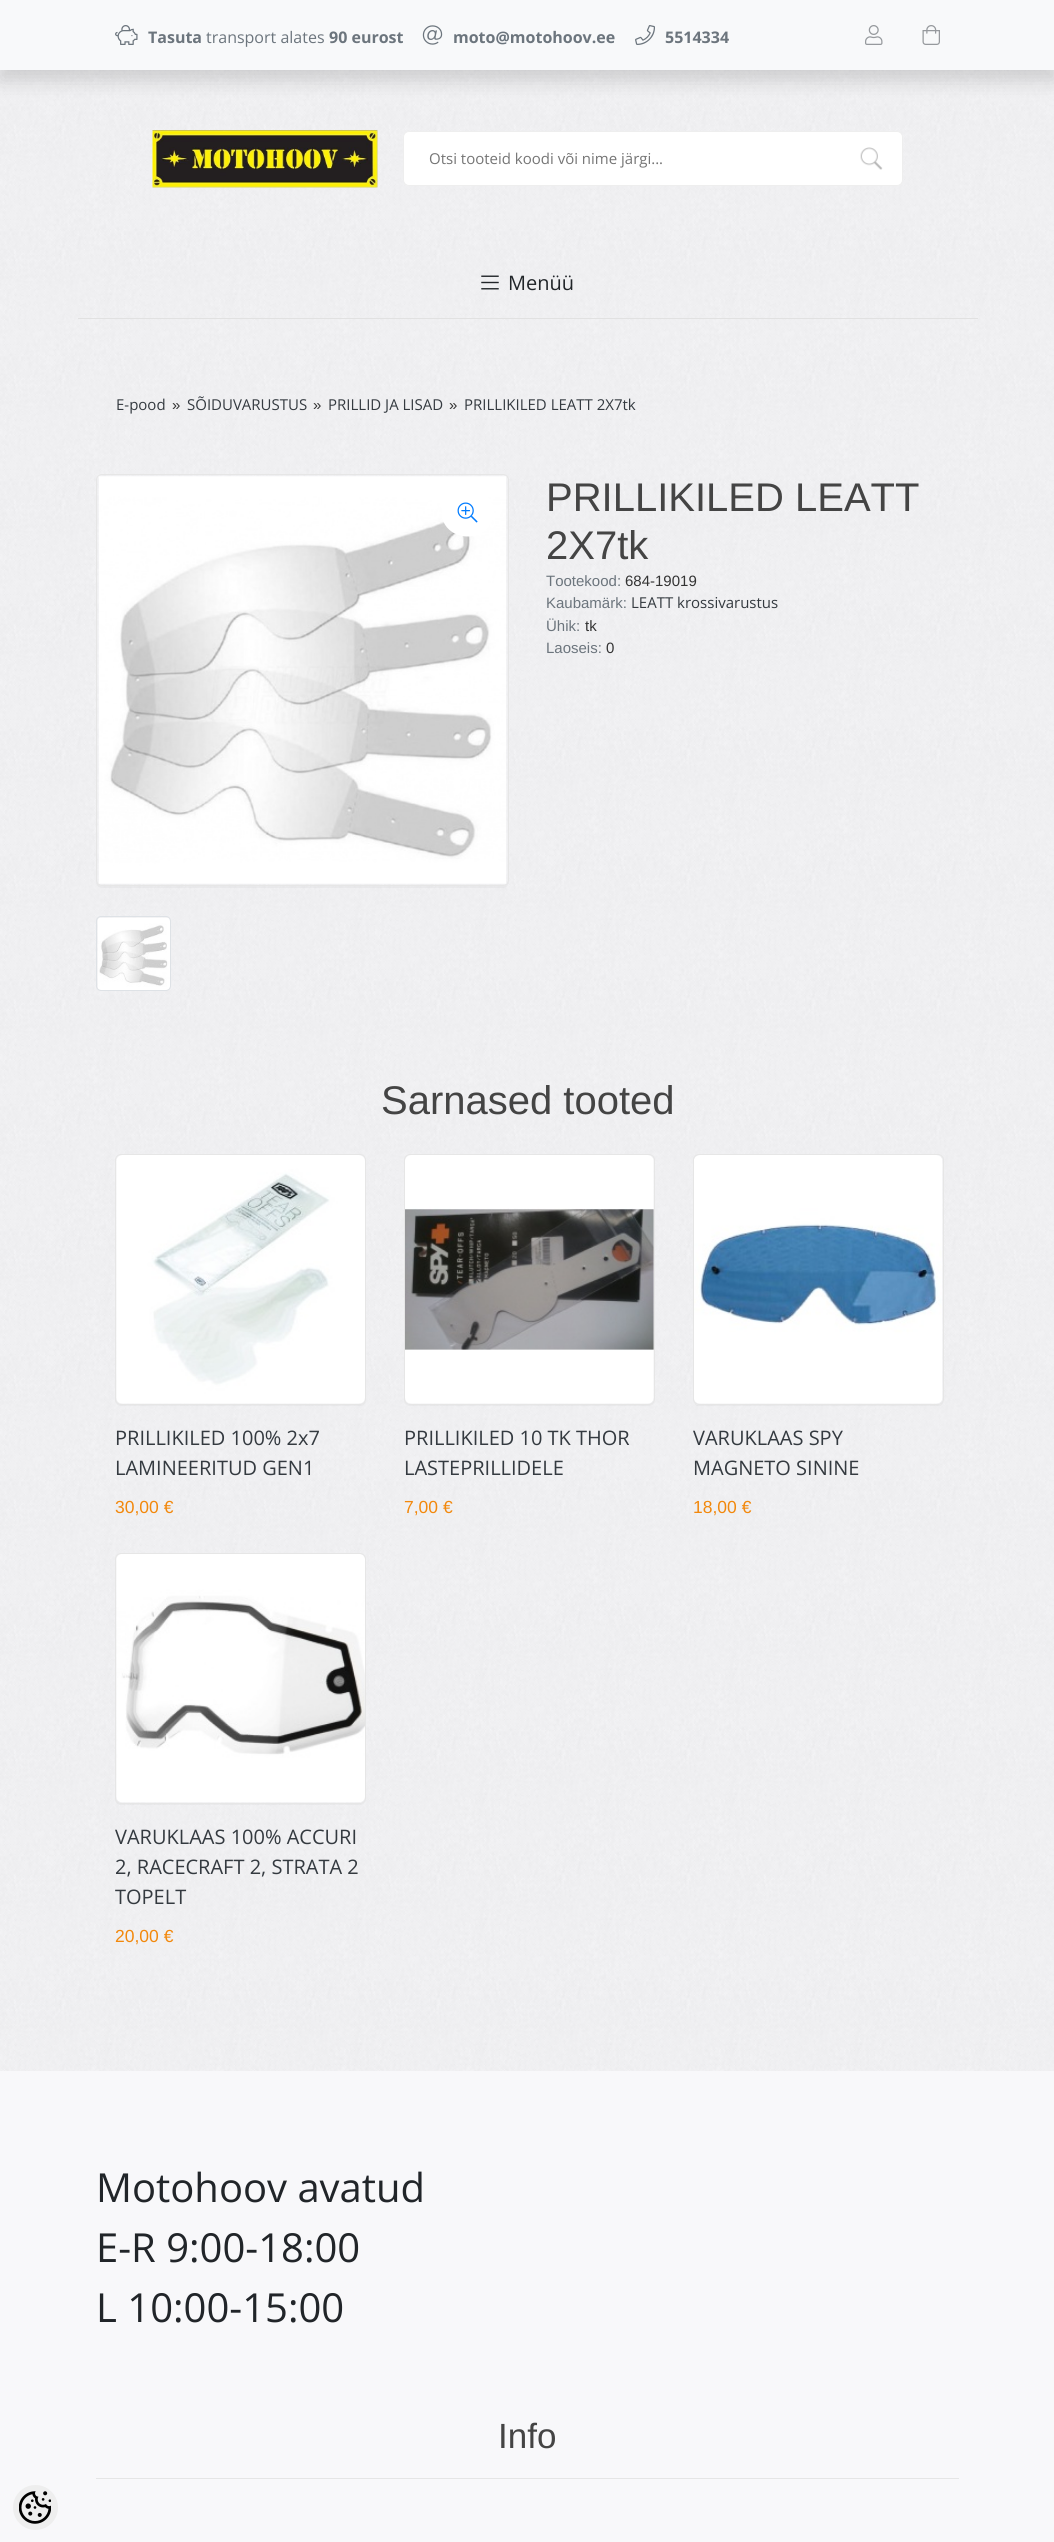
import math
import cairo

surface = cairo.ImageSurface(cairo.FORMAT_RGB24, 1054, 2542)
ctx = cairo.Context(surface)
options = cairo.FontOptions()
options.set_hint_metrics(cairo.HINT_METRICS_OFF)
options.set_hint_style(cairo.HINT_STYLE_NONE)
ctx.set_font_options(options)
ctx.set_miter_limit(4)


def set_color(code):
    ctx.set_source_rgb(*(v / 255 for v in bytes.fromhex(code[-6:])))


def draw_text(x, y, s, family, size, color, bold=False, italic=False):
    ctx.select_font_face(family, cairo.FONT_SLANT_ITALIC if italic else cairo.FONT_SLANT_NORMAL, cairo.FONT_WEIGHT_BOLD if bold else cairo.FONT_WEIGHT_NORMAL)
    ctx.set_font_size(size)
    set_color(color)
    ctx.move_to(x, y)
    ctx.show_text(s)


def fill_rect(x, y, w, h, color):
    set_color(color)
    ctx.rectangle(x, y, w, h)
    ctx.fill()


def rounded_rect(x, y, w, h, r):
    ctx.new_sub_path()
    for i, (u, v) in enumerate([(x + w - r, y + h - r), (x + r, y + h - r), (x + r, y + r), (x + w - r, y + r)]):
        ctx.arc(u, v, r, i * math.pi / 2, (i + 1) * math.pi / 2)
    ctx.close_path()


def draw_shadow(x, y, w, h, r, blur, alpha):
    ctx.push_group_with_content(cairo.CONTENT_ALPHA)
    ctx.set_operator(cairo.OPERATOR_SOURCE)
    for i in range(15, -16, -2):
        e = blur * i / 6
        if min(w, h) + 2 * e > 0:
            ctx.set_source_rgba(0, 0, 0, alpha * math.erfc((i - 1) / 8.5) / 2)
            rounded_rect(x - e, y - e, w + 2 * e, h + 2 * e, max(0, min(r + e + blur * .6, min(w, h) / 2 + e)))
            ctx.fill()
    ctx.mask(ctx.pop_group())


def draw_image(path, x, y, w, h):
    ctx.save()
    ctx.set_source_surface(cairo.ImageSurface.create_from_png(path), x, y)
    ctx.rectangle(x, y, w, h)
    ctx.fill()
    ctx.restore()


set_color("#f8f8fa")
ctx.paint()
draw_image("assets/img1.png", 0, 70, 1054, 2001)
set_color("#000000")
draw_shadow(0, 10, 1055, 70, 0, 10, 0.15)
fill_rect(0, 0, 1054, 70, "#f8f9fa")
draw_image("assets/img2.png", 115, 25, 23, 20)
draw_text(148, 43, "Tasuta", "Open Sans", 16, "#6c757d", bold=True)
draw_text(206, 43, "transport alates", "Open Sans", 16, "#6c757d")
draw_text(329, 43, "90 eurost", "Open Sans", 16, "#6c757d", bold=True)
draw_image("assets/img3.png", 422, 25, 21, 20)
draw_text(453, 43, "moto@motohoov.ee", "Open Sans", 16, "#6c757d", bold=True)
draw_image("assets/img4.png", 635, 25, 20, 20)
draw_text(665, 43, "5514334", "Open Sans", 16, "#6c757d", bold=True)
draw_image("assets/img5.png", 865, 25, 18, 20)
draw_image("assets/img6.png", 922, 25, 18, 20)
draw_image("assets/img7.png", 152, 130, 226, 58)
set_color("#ffffff")
rounded_rect(403.5, 131.5, 499, 54, 5.5)
ctx.fill_preserve()
set_color("#eeeeee")
ctx.set_line_width(1)
ctx.stroke()
draw_text(429, 164, "Otsi tooteid koodi või nime järgi...", "Open Sans", 15, "#757575")
draw_image("assets/img8.png", 860, 147, 23, 23)
fill_rect(78, 318, 900, 1, "#e1e1e1")
draw_image("assets/img9.png", 481, 275, 18, 15)
draw_text(508, 290, "Menüü", "Open Sans", 20, "#212529")
draw_text(116, 410, "E-pood", "Open Sans", 15, "#343a40")
draw_text(172, 410, "»", "Liberation Sans", 15, "#333333")
draw_text(187, 410, "SÕIDUVARUSTUS", "Open Sans", 15, "#343a40")
draw_text(313, 410, "»", "Liberation Sans", 15, "#333333")
draw_text(328, 410, "PRILLID JA LISAD", "Open Sans", 15, "#343a40")
draw_text(449, 410, "»", "Liberation Sans", 15, "#333333")
draw_text(464, 410, "PRILLIKILED LEATT 2X7tk", "Open Sans", 15, "#343a40")
ctx.set_source_rgba(0, 0, 0, 0.03)
ctx.new_path()
ctx.move_to(96, 479)
ctx.line_to(96, 882)
ctx.curve_to(96, 885, 99, 888, 102, 888)
ctx.line_to(503, 888)
ctx.curve_to(506, 888, 509, 885, 509, 882)
ctx.line_to(509, 479)
ctx.line_to(509, 880)
ctx.curve_to(509, 883, 506, 886, 502, 886)
ctx.line_to(102, 886)
ctx.curve_to(99, 886, 96, 883, 96, 880)
ctx.close_path()
ctx.fill()
rounded_rect(96.5, 474.5, 412, 411, 5.5)
set_color("#e6e6e6")
ctx.stroke()
draw_image("assets/img10.png", 98, 476, 409, 408)
set_color("#ffffff")
ctx.new_path()
ctx.move_to(467.5, 488.5)
ctx.curve_to(482, 488.5, 493.5, 499, 493.5, 512.5)
ctx.curve_to(493.5, 526, 482, 536.5, 467.5, 536.5)
ctx.curve_to(453, 536.5, 441.5, 526, 441.5, 512.5)
ctx.curve_to(441.5, 499, 453, 488.5, 467.5, 488.5)
ctx.close_path()
ctx.fill()
draw_image("assets/img11.png", 457, 502, 21, 21)
draw_image("assets/img12.png", 97, 917, 73, 73)
rounded_rect(96.5, 916.5, 74, 74, 4.5)
set_color("#dee2e6")
ctx.stroke()
draw_text(546, 511, "PRILLIKILED LEATT", "Liberation Sans", 40, "#444444")
draw_text(546, 559, "2X7tk", "Liberation Sans", 40, "#444444")
draw_text(546, 586, "Tootekood:", "Liberation Sans", 15, "#6c757d")
draw_text(625, 586, "684-19019", "Liberation Sans", 15, "#333333")
draw_text(546, 608, "Kaubamärk:", "Liberation Sans", 15, "#6c757d")
draw_text(631, 608, "LEATT krossivarustus", "Open Sans", 15, "#343a40")
draw_text(546, 631, "Ühik:", "Liberation Sans", 15, "#6c757d")
draw_text(585, 631, "tk", "Liberation Sans", 15, "#333333")
draw_text(546, 653, "Laoseis:", "Liberation Sans", 15, "#6c757d")
draw_text(606, 653, "0", "Liberation Sans", 15, "#333333")
draw_text(381, 1114, "Sarnased tooted", "Liberation Sans", 40, "#444444")
draw_image("assets/img13.png", 116, 1155, 249, 249)
ctx.set_source_rgba(0, 0, 0, 0.03)
ctx.new_path()
ctx.move_to(115, 1399)
ctx.line_to(115, 1400)
ctx.curve_to(115, 1403, 118, 1406, 121, 1406)
ctx.line_to(360, 1406)
ctx.curve_to(363, 1406, 366, 1404, 366, 1401)
ctx.curve_to(365, 1403, 363, 1405, 360, 1405)
ctx.line_to(121, 1405)
ctx.curve_to(118, 1405, 115, 1402, 115, 1399)
ctx.close_path()
ctx.fill()
rounded_rect(115.5, 1154.5, 250, 250, 5.5)
set_color("#e6e6e6")
ctx.stroke()
draw_text(115, 1445, "PRILLIKILED 100% 2x7", "Open Sans", 20, "#343a40")
draw_text(115, 1475, "LAMINEERITUD GEN1", "Open Sans", 20, "#343a40")
draw_text(115, 1513, "30,00 €", "Liberation Sans", 17.5, "#f2880c")
draw_image("assets/img14.png", 405, 1155, 249, 249)
ctx.set_source_rgba(0, 0, 0, 0.03)
ctx.new_path()
ctx.move_to(404, 1401)
ctx.curve_to(404, 1404, 407, 1406, 410, 1406)
ctx.line_to(649, 1406)
ctx.curve_to(652, 1406, 655, 1403, 655, 1400)
ctx.line_to(655, 1399)
ctx.curve_to(655, 1402, 652, 1405, 649, 1405)
ctx.line_to(410, 1405)
ctx.curve_to(407, 1405, 405, 1403, 404, 1401)
ctx.close_path()
ctx.fill()
rounded_rect(404.5, 1154.5, 250, 250, 5.5)
set_color("#e6e6e6")
ctx.stroke()
draw_text(404, 1445, "PRILLIKILED 10 TK THOR", "Open Sans", 20, "#343a40")
draw_text(404, 1475, "LASTEPRILLIDELE", "Open Sans", 20, "#343a40")
draw_text(404, 1513, "7,00 €", "Liberation Sans", 17.5, "#f2880c")
draw_image("assets/img15.png", 694, 1155, 249, 249)
ctx.set_source_rgba(0, 0, 0, 0.03)
ctx.new_path()
ctx.move_to(693, 1402)
ctx.curve_to(694, 1404, 695, 1405, 697, 1406)
ctx.line_to(939, 1406)
ctx.curve_to(941, 1406, 942, 1405, 943, 1403)
ctx.line_to(944, 1400)
ctx.line_to(944, 1159)
ctx.line_to(944, 1399)
ctx.curve_to(944, 1402, 941, 1405, 938, 1405)
ctx.line_to(699, 1405)
ctx.curve_to(696, 1405, 694, 1404, 693, 1402)
ctx.close_path()
ctx.fill()
rounded_rect(693.5, 1154.5, 250, 250, 5.5)
set_color("#e6e6e6")
ctx.stroke()
draw_text(693, 1445, "VARUKLAAS SPY", "Open Sans", 20, "#343a40")
draw_text(693, 1475, "MAGNETO SININE", "Open Sans", 20, "#343a40")
draw_text(693, 1513, "18,00 €", "Liberation Sans", 17.5, "#f2880c")
draw_image("assets/img16.png", 116, 1554, 249, 249)
ctx.set_source_rgba(0, 0, 0, 0.03)
ctx.new_path()
ctx.move_to(115, 1798)
ctx.curve_to(115, 1801, 116, 1804, 120, 1805)
ctx.line_to(360, 1805)
ctx.curve_to(363, 1805, 366, 1802, 366, 1799)
ctx.curve_to(365, 1802, 363, 1804, 360, 1804)
ctx.line_to(121, 1804)
ctx.curve_to(118, 1804, 115, 1801, 115, 1798)
ctx.close_path()
ctx.fill()
rounded_rect(115.5, 1553.5, 250, 250, 5.5)
set_color("#e6e6e6")
ctx.stroke()
draw_text(115, 1844, "VARUKLAAS 100% ACCURI", "Open Sans", 20, "#343a40")
draw_text(115, 1874, "2, RACECRAFT 2, STRATA 2", "Open Sans", 20, "#343a40")
draw_text(115, 1904, "TOPELT", "Open Sans", 20, "#343a40")
draw_text(115, 1942, "20,00 €", "Liberation Sans", 17.5, "#f2880c")
draw_text(96, 2202, "Motohoov avatud", "Open Sans", 40, "#212529")
draw_text(96, 2262, "E-R 9:00-18:00", "Open Sans", 40, "#212529")
draw_text(96, 2322, "L 10:00-15:00", "Open Sans", 40, "#212529")
fill_rect(96, 2478, 863, 1, "#e5e5e5")
draw_text(498, 2448, "Info", "Liberation Sans", 35, "#444444")
set_color("#eeeeee")
ctx.new_path()
ctx.arc(35.5, 2507.5, 22.5, 0, 2 * math.pi)
ctx.fill()
draw_image("assets/img17.png", 19, 2491, 32, 33)
surface.write_to_png("output.png")
